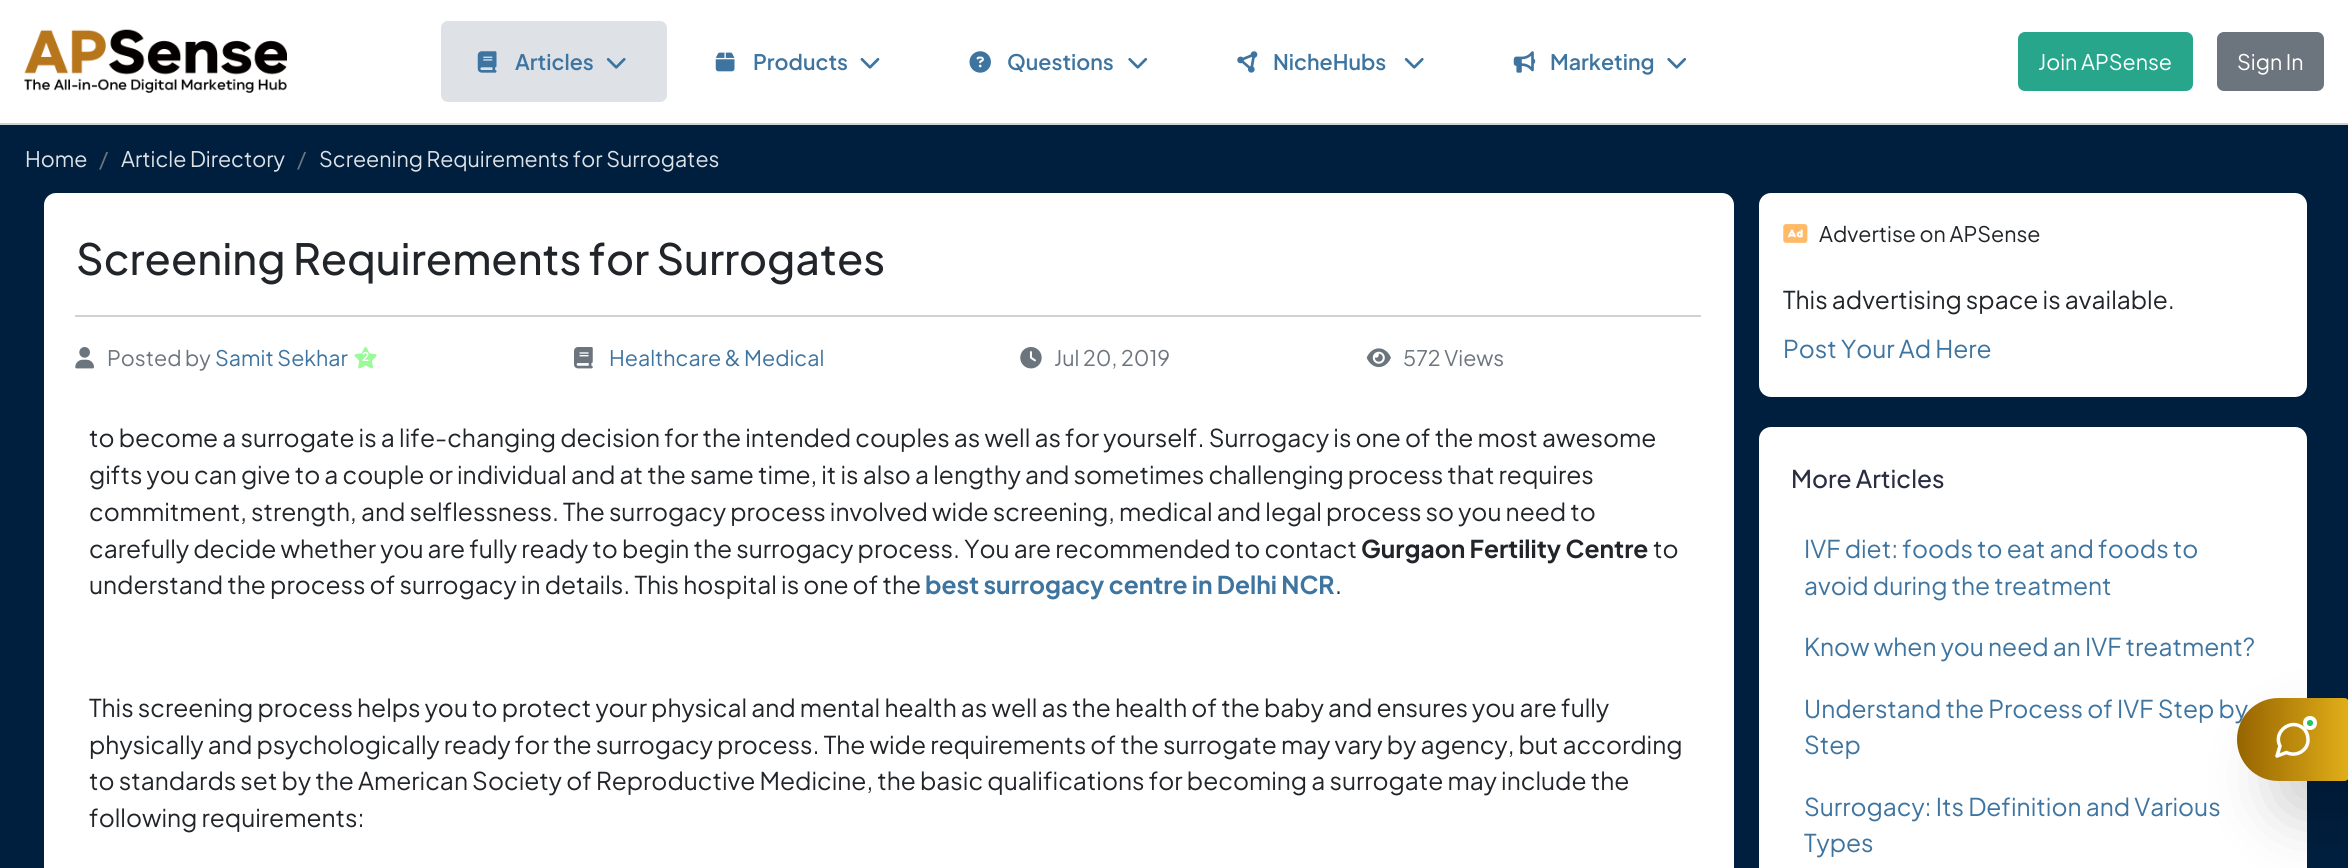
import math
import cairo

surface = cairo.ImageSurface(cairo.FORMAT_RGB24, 2348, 868)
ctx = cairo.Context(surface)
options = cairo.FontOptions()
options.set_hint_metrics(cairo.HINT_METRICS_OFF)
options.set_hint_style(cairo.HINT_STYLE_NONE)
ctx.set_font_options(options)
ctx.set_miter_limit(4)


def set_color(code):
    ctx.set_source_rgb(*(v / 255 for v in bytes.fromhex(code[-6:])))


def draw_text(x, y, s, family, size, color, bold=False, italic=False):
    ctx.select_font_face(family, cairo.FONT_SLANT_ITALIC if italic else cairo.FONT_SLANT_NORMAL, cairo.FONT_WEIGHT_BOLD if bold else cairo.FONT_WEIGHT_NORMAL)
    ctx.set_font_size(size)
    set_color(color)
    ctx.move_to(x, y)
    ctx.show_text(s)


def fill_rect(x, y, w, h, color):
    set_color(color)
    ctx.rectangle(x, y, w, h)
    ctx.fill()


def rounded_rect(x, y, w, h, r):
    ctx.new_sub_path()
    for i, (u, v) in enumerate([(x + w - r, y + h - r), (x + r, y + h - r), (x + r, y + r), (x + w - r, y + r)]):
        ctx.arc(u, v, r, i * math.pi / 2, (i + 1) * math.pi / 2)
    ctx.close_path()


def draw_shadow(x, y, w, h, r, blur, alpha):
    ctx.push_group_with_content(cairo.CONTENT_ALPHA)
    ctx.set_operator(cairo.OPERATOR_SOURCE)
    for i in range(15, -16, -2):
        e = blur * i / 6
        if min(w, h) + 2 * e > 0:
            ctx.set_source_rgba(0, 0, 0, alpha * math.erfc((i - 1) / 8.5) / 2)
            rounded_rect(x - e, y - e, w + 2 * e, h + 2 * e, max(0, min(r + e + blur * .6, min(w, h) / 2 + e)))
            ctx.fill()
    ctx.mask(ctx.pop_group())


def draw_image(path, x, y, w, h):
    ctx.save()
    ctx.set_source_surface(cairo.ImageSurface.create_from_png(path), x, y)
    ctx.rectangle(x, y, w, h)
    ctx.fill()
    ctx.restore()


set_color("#001f3f")
ctx.paint()
fill_rect(0, 0, 2348, 123, "#ffffff")
fill_rect(0, 123, 2348, 2, "#d1d1d1")
draw_image("assets/img1.png", 24, 29, 263, 64)
set_color("#dee2e6")
rounded_rect(441, 21, 226, 81, 7)
ctx.fill()
draw_image("assets/img2.png", 477, 51, 20, 22)
draw_text(515, 70, "Articles", "Plus Jakarta Sans SemiBold", 21.4, "#3e74a0")
draw_image("assets/img3.png", 606, 58, 20, 11)
draw_image("assets/img4.png", 715, 52, 20, 20)
draw_text(753, 70, "Products", "Plus Jakarta Sans SemiBold", 21.4, "#3e74a0")
draw_image("assets/img5.png", 860, 58, 20, 11)
draw_image("assets/img6.png", 969, 51, 22, 22)
draw_text(1007, 70, "Questions", "Plus Jakarta Sans SemiBold", 21.4, "#3e74a0")
draw_image("assets/img7.png", 1128, 58, 20, 11)
draw_image("assets/img8.png", 1237, 51, 21, 22)
draw_text(1273, 70, "NicheHubs", "Plus Jakarta Sans SemiBold", 21.4, "#3e74a0")
draw_image("assets/img9.png", 1404, 58, 20, 11)
draw_image("assets/img10.png", 1513, 51, 23, 22)
draw_text(1550, 70, "Marketing", "Plus Jakarta Sans SemiBold", 21.4, "#3e74a0")
draw_image("assets/img7.png", 1667, 58, 20, 11)
set_color("#27a68c")
rounded_rect(2019, 33, 173, 57, 6)
ctx.fill_preserve()
ctx.stroke()
draw_text(2038, 70, "Join APSense", "Plus Jakarta Sans", 21.4, "#ffffff")
set_color("#6c757d")
rounded_rect(2218, 33, 105, 57, 6)
ctx.fill_preserve()
ctx.stroke()
draw_text(2237, 70, "Sign In", "Plus Jakarta Sans", 21.4, "#ffffff")
draw_text(25, 167, "Home", "Plus Jakarta Sans", 21.4, "#dee2e6")
draw_text(99, 167, "/", "Plus Jakarta Sans", 21.4, "#6c757d")
draw_text(121, 167, "Article Directory", "Plus Jakarta Sans", 21.4, "#dee2e6")
draw_text(297, 167, "/", "Plus Jakarta Sans", 21.4, "#6c757d")
draw_text(319, 167, "Screening Requirements for Surrogates", "Plus Jakarta Sans", 21.4, "#dee2e6")
set_color("#ffffff")
rounded_rect(44, 193, 1690, 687, 12)
ctx.fill()
fill_rect(75, 315, 1626, 2, "#d1d1d1")
draw_text(76, 275, "Screening Requirements for Surrogates", "Plus Jakarta Sans Medium", 42.9, "#212529")
draw_image("assets/img11.png", 75, 347, 19, 22)
draw_text(107, 366, "Posted by", "Plus Jakarta Sans", 21.4, "#6c757d")
draw_text(215, 366, "Samit Sekhar", "Plus Jakarta Sans", 21.4, "#3e74a0")
draw_image("assets/img12.png", 354, 347, 23, 22)
draw_text(362, 361, "2", "Plus Jakarta Sans", 12, "#ffffff", bold=True)
draw_image("assets/img13.png", 574, 347, 19, 22)
draw_text(609, 366, "Healthcare & Medical", "Plus Jakarta Sans", 21.4, "#3e74a0")
draw_image("assets/img14.png", 1020, 347, 22, 22)
draw_text(1054, 366, "Jul 20, 2019", "Plus Jakarta Sans", 21.4, "#6c757d")
draw_image("assets/img15.png", 1366, 348, 25, 20)
draw_text(1403, 366, "572 Views", "Plus Jakarta Sans", 21.4, "#6c757d")
draw_text(89, 447, "to become a surrogate is a life-changing decision for the intended couples as well as for yourself. Surrogacy is one of the most awesome", "Plus Jakarta Sans", 24.5, "#212529")
draw_text(89, 484, "gifts you can give to a couple or individual and at the same time, it is also a lengthy and sometimes challenging process that requires", "Plus Jakarta Sans", 24.5, "#212529")
draw_text(89, 521, "commitment, strength, and selflessness. The surrogacy process involved wide screening, medical and legal process so you need to", "Plus Jakarta Sans", 24.5, "#212529")
draw_text(89, 558, "carefully decide whether you are fully ready to begin the surrogacy process. You are recommended to contact", "Plus Jakarta Sans", 24.5, "#212529")
draw_text(1361, 558, "Gurgaon Fertility Centre", "Plus Jakarta Sans", 24.5, "#212529", bold=True)
draw_text(1653, 558, "to", "Plus Jakarta Sans", 24.5, "#212529")
draw_text(89, 594, "understand the process of surrogacy in details. This hospital is one of the", "Plus Jakarta Sans", 24.5, "#212529")
draw_text(925, 594, "best surrogacy centre in Delhi NCR", "Plus Jakarta Sans", 24.5, "#3e74a0", bold=True)
draw_text(1335, 594, ".", "Plus Jakarta Sans", 24.5, "#212529")
draw_text(89, 717, "This screening process helps you to protect your physical and mental health as well as the health of the baby and ensures you are fully", "Plus Jakarta Sans", 24.5, "#212529")
draw_text(89, 754, "physically and psychologically ready for the surrogacy process. The wide requirements of the surrogate may vary by agency, but according", "Plus Jakarta Sans", 24.5, "#212529")
draw_text(89, 790, "to standards set by the American Society of Reproductive Medicine, the basic qualifications for becoming a surrogate may include the", "Plus Jakarta Sans", 24.5, "#212529")
draw_text(89, 827, "following requirements:", "Plus Jakarta Sans", 24.5, "#212529")
set_color("#ffffff")
rounded_rect(1759, 193, 548, 204, 12)
ctx.fill()
draw_image("assets/img16.png", 1783, 224, 25, 19)
draw_text(1819, 242, "Advertise on APSense", "Plus Jakarta Sans", 21.4, "#212529")
draw_text(1783, 309, "This advertising space is available.", "Plus Jakarta Sans", 24.5, "#212529")
draw_text(1783, 358, "Post Your Ad Here", "Plus Jakarta Sans", 24.5, "#3e74a0")
set_color("#ffffff")
rounded_rect(1759, 427, 548, 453, 12)
ctx.fill()
draw_text(1791, 488, "More Articles", "Plus Jakarta Sans Medium", 24.5, "#2b2d42")
draw_text(1804, 558, "IVF diet: foods to eat and foods to", "Plus Jakarta Sans", 24.5, "#3e74a0")
draw_text(1804, 595, "avoid during the treatment", "Plus Jakarta Sans", 24.5, "#3e74a0")
draw_text(1804, 656, "Know when you need an IVF treatment?", "Plus Jakarta Sans", 24.5, "#3e74a0")
draw_text(1804, 718, "Understand the Process of IVF Step by", "Plus Jakarta Sans", 24.5, "#3e74a0")
draw_text(1804, 754, "Step", "Plus Jakarta Sans", 24.5, "#3e74a0")
draw_text(1804, 816, "Surrogacy: Its Definition and Various", "Plus Jakarta Sans", 24.5, "#3e74a0")
draw_text(1804, 852, "Types", "Plus Jakarta Sans", 24.5, "#3e74a0")
set_color("#000000")
draw_shadow(2273, 735, 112, 82, 41, 30.5, 0.18)
gradient = cairo.LinearGradient(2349, 739, 2237, 739)
gradient.add_color_stop_rgba(0, 0.882, 0.686, 0.098, 1)
gradient.add_color_stop_rgba(1, 0.588, 0.392, 0, 1)
ctx.set_source(gradient)
ctx.new_path()
ctx.move_to(2278.5, 698)
ctx.line_to(2344, 698)
ctx.curve_to(2347, 698, 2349, 700, 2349, 703)
ctx.line_to(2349, 776)
ctx.curve_to(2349, 779, 2347, 781, 2344, 781)
ctx.line_to(2278.5, 781)
ctx.curve_to(2255.5, 781, 2237, 762.5, 2237, 739.5)
ctx.curve_to(2237, 716.5, 2255.5, 698, 2278.5, 698)
ctx.close_path()
ctx.fill()
ctx.new_path()
ctx.move_to(2308, 739.5)
ctx.curve_to(2308.5, 750, 2296.5, 757.5, 2286.5, 752.5)
ctx.line_to(2277, 756)
ctx.line_to(2280, 746)
ctx.curve_to(2272.5, 731.5, 2292, 717, 2304, 729)
ctx.curve_to(2306.5, 731.5, 2308, 735.5, 2308, 739.5)
ctx.close_path()
set_color("#ffffff")
ctx.set_line_width(3.5)
ctx.set_line_cap(cairo.LINE_CAP_ROUND)
ctx.set_line_join(cairo.LINE_JOIN_ROUND)
ctx.stroke()
set_color("#22c55e")
ctx.arc(2310, 723, 5, 0, 2 * math.pi)
ctx.fill_preserve()
set_color("#ffffff")
ctx.set_line_width(4)
ctx.set_line_cap(cairo.LINE_CAP_BUTT)
ctx.set_line_join(cairo.LINE_JOIN_MITER)
ctx.stroke()
surface.write_to_png("output.png")
